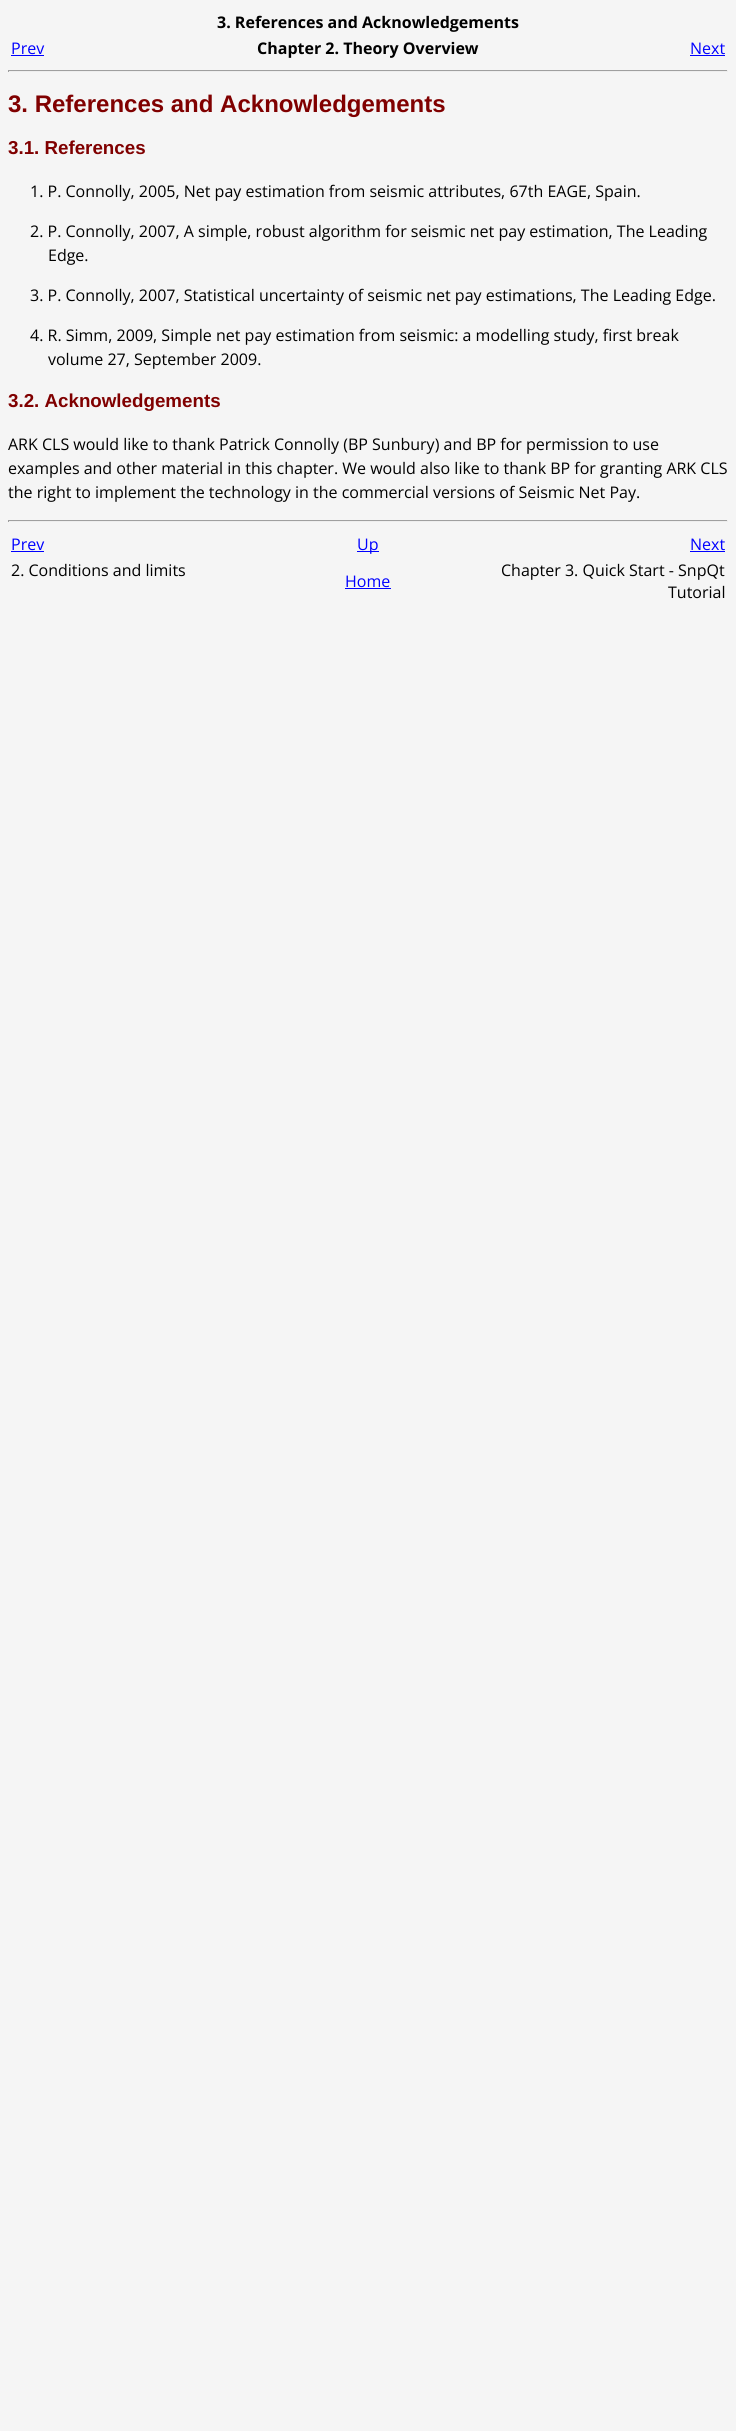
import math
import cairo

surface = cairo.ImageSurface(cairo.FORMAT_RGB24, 736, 2431)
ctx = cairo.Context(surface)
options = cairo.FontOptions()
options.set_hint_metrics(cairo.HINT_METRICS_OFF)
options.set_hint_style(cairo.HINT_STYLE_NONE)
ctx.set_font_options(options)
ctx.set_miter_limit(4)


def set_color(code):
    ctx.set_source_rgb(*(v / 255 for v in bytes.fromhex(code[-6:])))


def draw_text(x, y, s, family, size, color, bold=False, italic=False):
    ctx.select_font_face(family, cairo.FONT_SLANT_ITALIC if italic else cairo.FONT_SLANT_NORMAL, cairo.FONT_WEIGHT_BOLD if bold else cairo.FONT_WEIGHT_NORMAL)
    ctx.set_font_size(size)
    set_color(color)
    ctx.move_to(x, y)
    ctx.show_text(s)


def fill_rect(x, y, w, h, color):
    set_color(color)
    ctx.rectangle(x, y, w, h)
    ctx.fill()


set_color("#f5f5f5")
ctx.paint()
draw_text(217, 28, "3. References and Acknowledgements", "Open Sans", 16, "#000000", bold=True)
draw_text(11, 54, "Prev", "Open Sans", 16, "#0000ff")
fill_rect(11, 55, 33, 1, "#0000ff")
draw_text(257, 54, "Chapter 2. Theory Overview", "Open Sans", 16, "#000000", bold=True)
draw_text(690, 54, "Next", "Open Sans", 16, "#0000ff")
fill_rect(690, 55, 35, 1, "#0000ff")
fill_rect(8, 70, 720, 1, "#9f9f9f")
fill_rect(727, 70, 1, 2, "#eeeeee")
fill_rect(8, 71, 720, 1, "#eeeeee")
fill_rect(8, 70, 1, 2, "#9f9f9f")
draw_text(8, 112, "3. References and Acknowledgements", "Liberation Sans", 24, "#800000", bold=True)
draw_text(8, 154, "3.1. References", "Liberation Sans", 18.75, "#800000", bold=True)
draw_text(30, 197, "1. P. Connolly, 2005, Net pay estimation from seismic attributes, 67th EAGE, Spain.", "Open Sans", 16, "#000000")
draw_text(30, 237, "2. P. Connolly, 2007, A simple, robust algorithm for seismic net pay estimation, The Leading", "Open Sans", 16, "#000000")
draw_text(48, 261, "Edge.", "Open Sans", 16, "#000000")
draw_text(30, 301, "3. P. Connolly, 2007, Statistical uncertainty of seismic net pay estimations, The Leading Edge.", "Open Sans", 16, "#000000")
draw_text(30, 341, "4. R. Simm, 2009, Simple net pay estimation from seismic: a modelling study, first break", "Open Sans", 16, "#000000")
draw_text(48, 365, "volume 27, September 2009.", "Open Sans", 16, "#000000")
draw_text(8, 407, "3.2. Acknowledgements", "Liberation Sans", 18.75, "#800000", bold=True)
draw_text(8, 450, "ARK CLS would like to thank Patrick Connolly (BP Sunbury) and BP for permission to use", "Open Sans", 16, "#000000")
draw_text(8, 474, "examples and other material in this chapter. We would also like to thank BP for granting ARK CLS", "Open Sans", 16, "#000000")
draw_text(8, 498, "the right to implement the technology in the commercial versions of Seismic Net Pay.", "Open Sans", 16, "#000000")
fill_rect(8, 520, 720, 1, "#9f9f9f")
fill_rect(727, 520, 1, 2, "#eeeeee")
fill_rect(8, 521, 720, 1, "#eeeeee")
fill_rect(8, 520, 1, 2, "#9f9f9f")
draw_text(11, 550, "Prev", "Open Sans", 16, "#0000ff")
fill_rect(11, 551, 33, 1, "#0000ff")
fill_rect(357, 551, 22, 1, "#0000ff")
draw_text(357, 550, "Up", "Open Sans", 16, "#0000ff")
draw_text(690, 550, "Next", "Open Sans", 16, "#0000ff")
fill_rect(690, 551, 35, 1, "#0000ff")
draw_text(11, 576, "2. Conditions and limits", "Open Sans", 16, "#000000")
draw_text(345, 587, "Home", "Open Sans", 16, "#0000ff")
fill_rect(345, 588, 46, 1, "#0000ff")
draw_text(501, 576, "Chapter 3. Quick Start - SnpQt", "Open Sans", 16, "#000000")
draw_text(668, 598, "Tutorial", "Open Sans", 16, "#000000")
surface.write_to_png("output.png")
